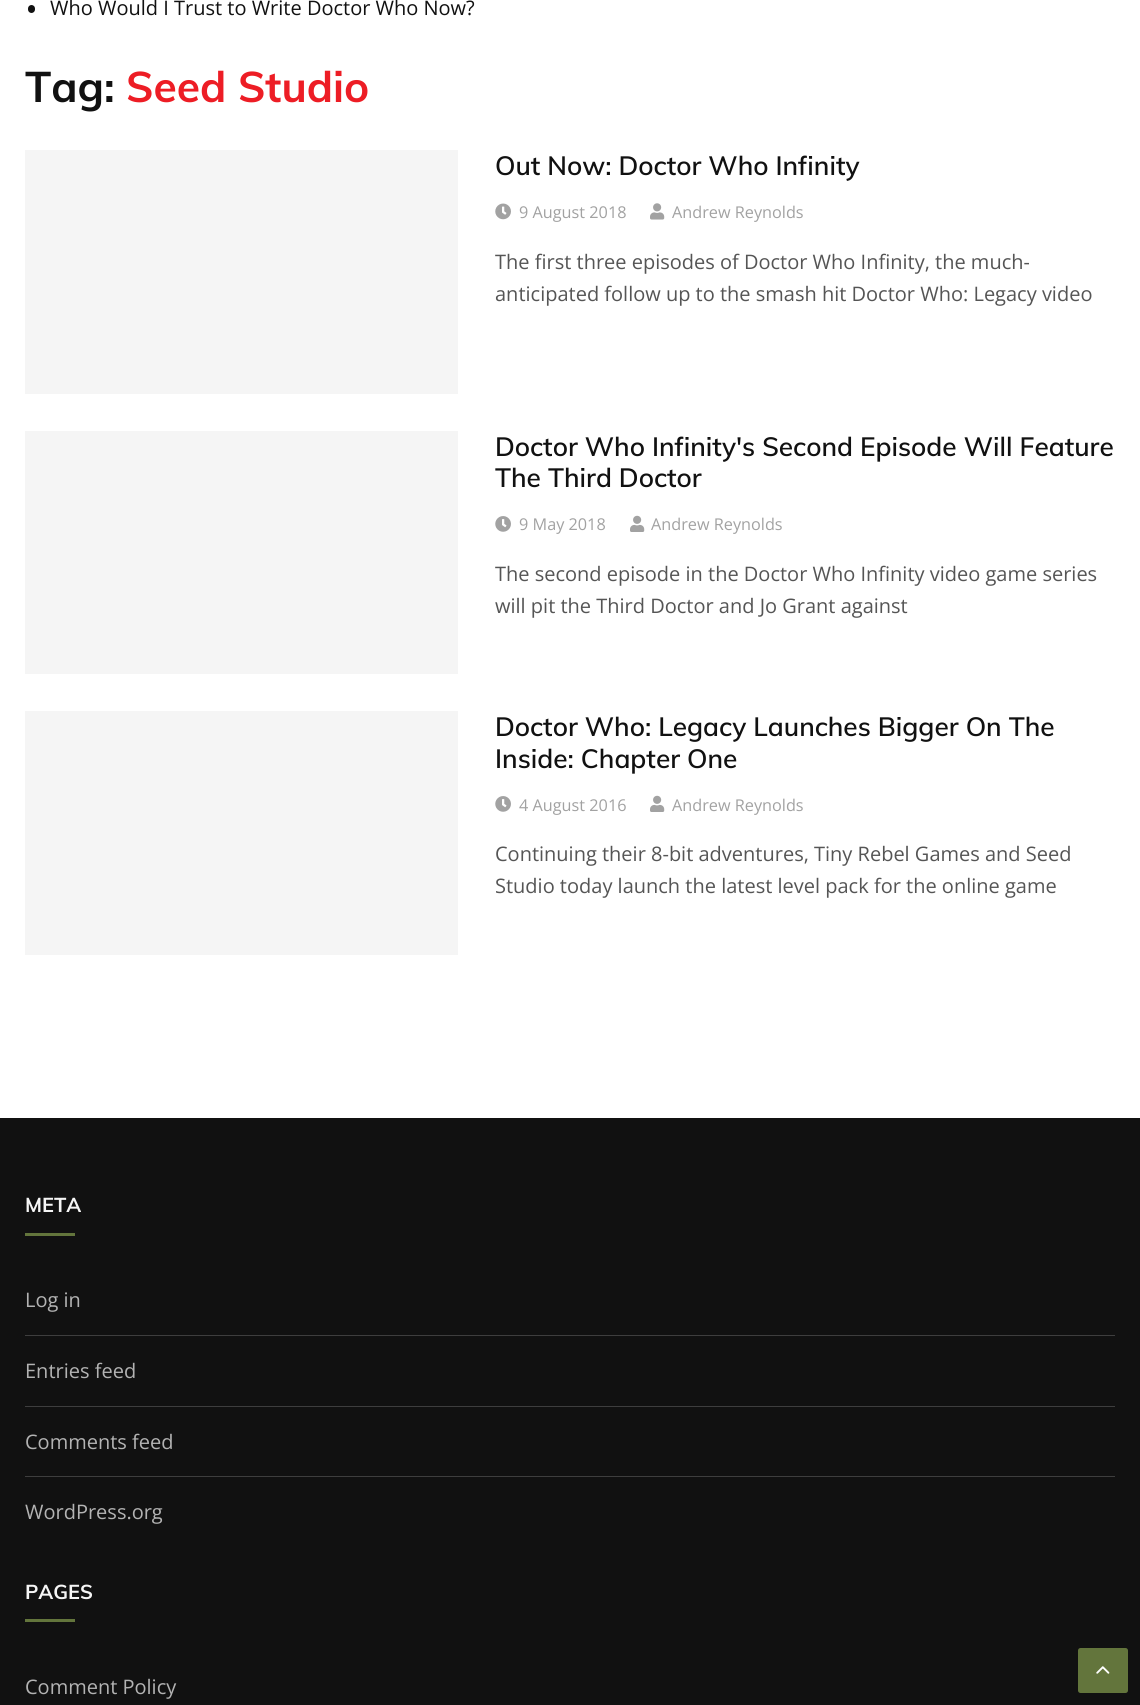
import math
import cairo

surface = cairo.ImageSurface(cairo.FORMAT_RGB24, 1140, 1705)
ctx = cairo.Context(surface)
options = cairo.FontOptions()
options.set_hint_metrics(cairo.HINT_METRICS_OFF)
options.set_hint_style(cairo.HINT_STYLE_NONE)
ctx.set_font_options(options)
ctx.set_miter_limit(4)


def set_color(code):
    ctx.set_source_rgb(*(v / 255 for v in bytes.fromhex(code[-6:])))


def draw_text(x, y, s, family, size, color, bold=False, italic=False):
    ctx.select_font_face(family, cairo.FONT_SLANT_ITALIC if italic else cairo.FONT_SLANT_NORMAL, cairo.FONT_WEIGHT_BOLD if bold else cairo.FONT_WEIGHT_NORMAL)
    ctx.set_font_size(size)
    set_color(color)
    ctx.move_to(x, y)
    ctx.show_text(s)


def fill_rect(x, y, w, h, color):
    set_color(color)
    ctx.rectangle(x, y, w, h)
    ctx.fill()


def rounded_rect(x, y, w, h, r):
    ctx.new_sub_path()
    for i, (u, v) in enumerate([(x + w - r, y + h - r), (x + r, y + h - r), (x + r, y + r), (x + w - r, y + r)]):
        ctx.arc(u, v, r, i * math.pi / 2, (i + 1) * math.pi / 2)
    ctx.close_path()


def draw_image(path, x, y, w, h):
    ctx.save()
    ctx.set_source_surface(cairo.ImageSurface.create_from_png(path), x, y)
    ctx.rectangle(x, y, w, h)
    ctx.fill()
    ctx.restore()


set_color("#ffffff")
ctx.paint()
set_color("#111111")
rounded_rect(28, 5, 7, 8, 3.5)
ctx.fill()
draw_text(50, 15, "Who Would I Trust to Write Doctor Who Now?", "Open Sans", 20, "#111111")
draw_text(25, 102, "Tag:", "Muli", 42.5, "#111111", bold=True)
draw_text(126, 102, "Seed Studio", "Muli", 42.5, "#ed1d25", bold=True)
fill_rect(25, 150, 433, 244, "#f5f5f5")
draw_text(495, 175, "Out Now: Doctor Who Infinity", "Muli SemiBold", 26.25, "#111111")
draw_image("assets/img1.png", 495, 203, 16, 17)
draw_text(519, 218, "9 August 2018", "Open Sans", 16.25, "#a2a2a2")
draw_image("assets/img2.png", 650, 203, 15, 17)
draw_text(672, 218, "Andrew Reynolds", "Open Sans", 16.25, "#a2a2a2")
draw_text(495, 269, "The first three episodes of Doctor Who Infinity, the much-", "Open Sans", 20, "#555555")
draw_text(495, 301, "anticipated follow up to the smash hit Doctor Who: Legacy video", "Open Sans", 20, "#555555")
fill_rect(25, 431, 433, 243, "#f5f5f5")
draw_text(495, 456, "Doctor Who Infinity's Second Episode Will Feature", "Muli SemiBold", 26.25, "#111111")
draw_text(495, 487, "The Third Doctor", "Muli SemiBold", 26.25, "#111111")
draw_image("assets/img3.png", 495, 516, 16, 16)
draw_text(519, 530, "9 May 2018", "Open Sans", 16.25, "#a2a2a2")
draw_image("assets/img4.png", 630, 515, 15, 17)
draw_text(651, 530, "Andrew Reynolds", "Open Sans", 16.25, "#a2a2a2")
draw_text(495, 581, "The second episode in the Doctor Who Infinity video game series", "Open Sans", 20, "#555555")
draw_text(495, 613, "will pit the Third Doctor and Jo Grant against", "Open Sans", 20, "#555555")
fill_rect(25, 711, 433, 244, "#f5f5f5")
draw_text(495, 736, "Doctor Who: Legacy Launches Bigger On The", "Muli SemiBold", 26.25, "#111111")
draw_text(495, 768, "Inside: Chapter One", "Muli SemiBold", 26.25, "#111111")
draw_image("assets/img3.png", 495, 796, 16, 16)
draw_text(519, 811, "4 August 2016", "Open Sans", 16.25, "#a2a2a2")
draw_image("assets/img4.png", 650, 795, 15, 17)
draw_text(672, 811, "Andrew Reynolds", "Open Sans", 16.25, "#a2a2a2")
draw_text(495, 861, "Continuing their 8-bit adventures, Tiny Rebel Games and Seed", "Open Sans", 20, "#555555")
draw_text(495, 893, "Studio today launch the latest level pack for the online game", "Open Sans", 20, "#555555")
fill_rect(0, 1118, 1140, 587, "#111111")
draw_text(25, 1212, "META", "Muli", 20, "#f5f5f5", bold=True)
fill_rect(25, 1233, 50, 3, "#63753c")
fill_rect(25, 1335, 1090, 1, "#3e3e3e")
draw_text(25, 1307, "Log in", "Open Sans", 20, "#b3b3b3")
fill_rect(25, 1406, 1090, 1, "#3e3e3e")
draw_text(25, 1378, "Entries feed", "Open Sans", 20, "#b3b3b3")
fill_rect(25, 1476, 1090, 1, "#3e3e3e")
draw_text(25, 1449, "Comments feed", "Open Sans", 20, "#b3b3b3")
draw_text(25, 1519, "WordPress.org", "Open Sans", 20, "#b3b3b3")
draw_text(25, 1599, "PAGES", "Muli", 20, "#f5f5f5", bold=True)
fill_rect(25, 1619, 50, 3, "#63753c")
draw_text(25, 1694, "Comment Policy", "Open Sans", 20, "#b3b3b3")
set_color("#63753c")
rounded_rect(1078, 1648, 50, 45, 2.5)
ctx.fill()
draw_image("assets/img5.png", 1096, 1666, 14, 8)
surface.write_to_png("output.png")
